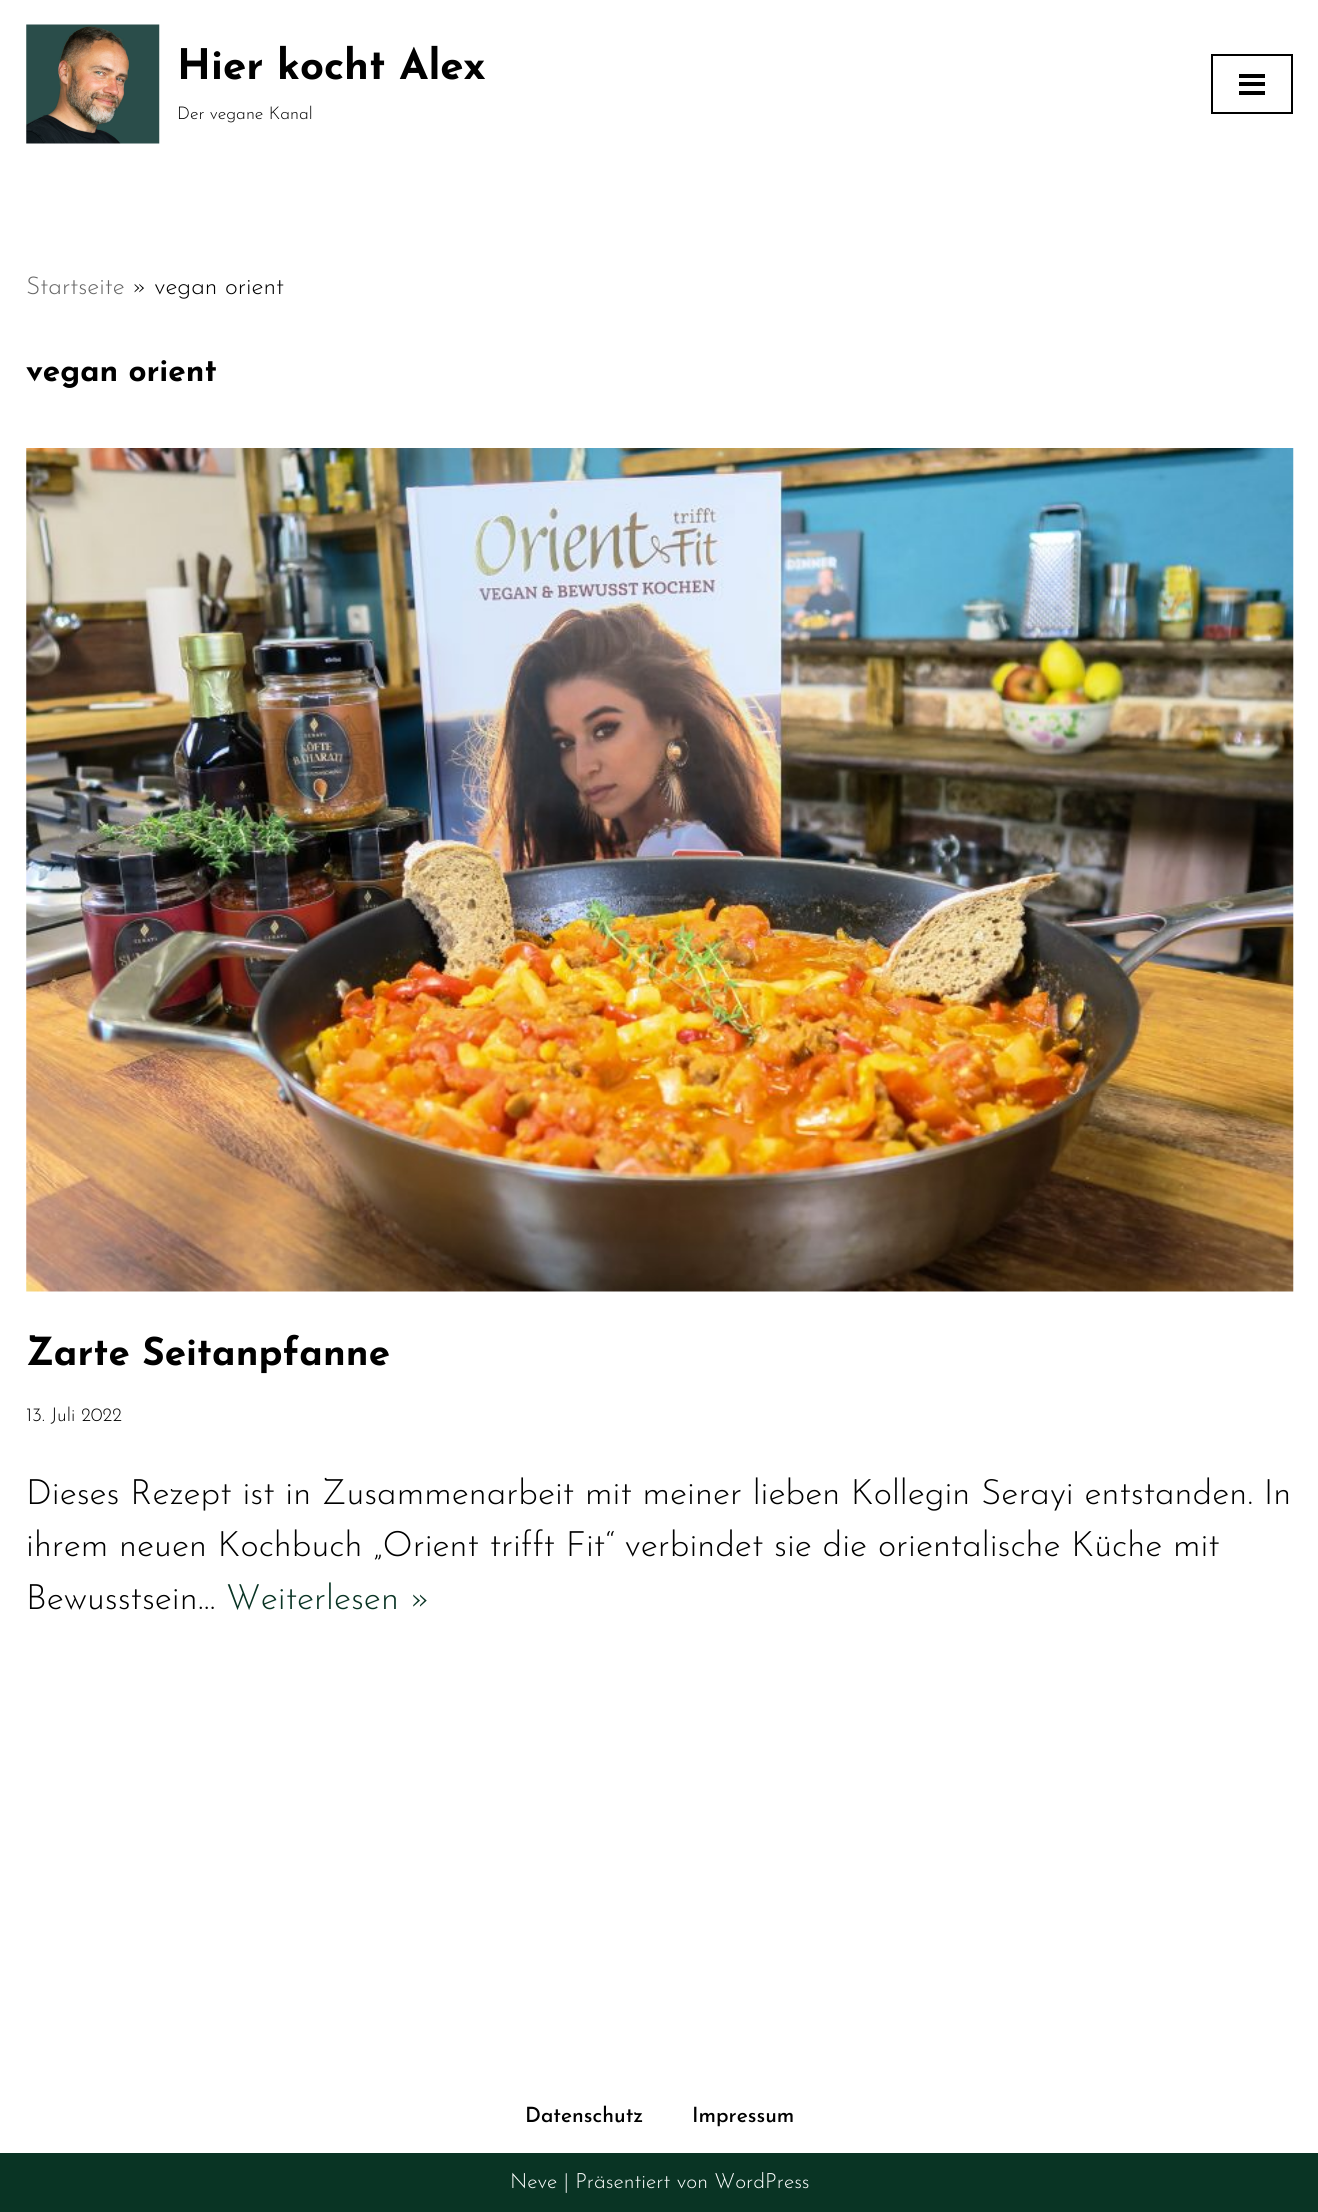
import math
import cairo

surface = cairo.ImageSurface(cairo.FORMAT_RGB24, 1318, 2212)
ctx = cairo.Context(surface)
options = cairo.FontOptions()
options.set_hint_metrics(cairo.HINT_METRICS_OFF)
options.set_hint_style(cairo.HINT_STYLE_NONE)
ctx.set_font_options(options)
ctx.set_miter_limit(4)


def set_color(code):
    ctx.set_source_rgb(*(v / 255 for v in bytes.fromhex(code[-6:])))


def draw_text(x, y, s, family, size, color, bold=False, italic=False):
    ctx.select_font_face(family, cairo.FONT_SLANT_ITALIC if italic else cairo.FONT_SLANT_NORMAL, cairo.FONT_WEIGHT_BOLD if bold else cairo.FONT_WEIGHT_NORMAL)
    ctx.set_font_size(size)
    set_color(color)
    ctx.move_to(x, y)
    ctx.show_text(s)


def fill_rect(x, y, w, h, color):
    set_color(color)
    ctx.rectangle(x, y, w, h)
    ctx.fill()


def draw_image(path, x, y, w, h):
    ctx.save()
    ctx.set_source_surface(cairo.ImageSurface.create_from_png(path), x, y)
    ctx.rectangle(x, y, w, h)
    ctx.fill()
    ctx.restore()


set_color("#ffffff")
ctx.paint()
draw_image("assets/img1.png", 26, 24, 134, 120)
draw_text(177, 79, "Hier kocht Alex", "Josefin Sans", 42, "#000000", bold=True)
draw_text(177, 119, "Der vegane Kanal", "Josefin Sans Light", 17.5, "#000000")
ctx.rectangle(1212, 55, 80, 58)
ctx.stroke()
fill_rect(1239, 74, 26, 4, "#000000")
fill_rect(1239, 82, 26, 4, "#000000")
fill_rect(1239, 91, 26, 4, "#000000")
draw_text(26, 294, "Startseite", "Josefin Sans Light", 24.5, "#676767")
draw_text(132, 294, "» vegan orient", "Josefin Sans Light", 24.5, "#000000")
draw_text(26, 381, "vegan orient", "Josefin Sans", 31.5, "#000000", bold=True)
draw_image("assets/img2.png", 26, 448, 1268, 844)
draw_text(26, 1365, "Zarte Seitanpfanne", "Josefin Sans", 38.5, "#000000", bold=True)
draw_text(26, 1421, "13. Juli 2022", "Josefin Sans Light", 19, "#000000")
draw_text(26, 1504, "Dieses Rezept ist in Zusammenarbeit mit meiner lieben Kollegin Serayi entstanden. In", "Josefin Sans Light", 35, "#000000")
draw_text(26, 1556, "ihrem neuen Kochbuch „Orient trifft Fit“ verbindet sie die orientalische Küche mit", "Josefin Sans Light", 35, "#000000")
draw_text(26, 1609, "Bewusstsein…", "Josefin Sans Light", 35, "#000000")
draw_text(226, 1609, "Weiterlesen »", "Josefin Sans Light", 35, "#093424")
draw_text(525, 2122, "Datenschutz", "Josefin Sans Medium", 21, "#000000")
draw_text(692, 2122, "Impressum", "Josefin Sans Medium", 21, "#000000")
fill_rect(0, 2153, 1318, 59, "#093424")
draw_text(510, 2188, "Neve | Präsentiert von WordPress", "Josefin Sans Light", 21, "#ffffff")
surface.write_to_png("output.png")
